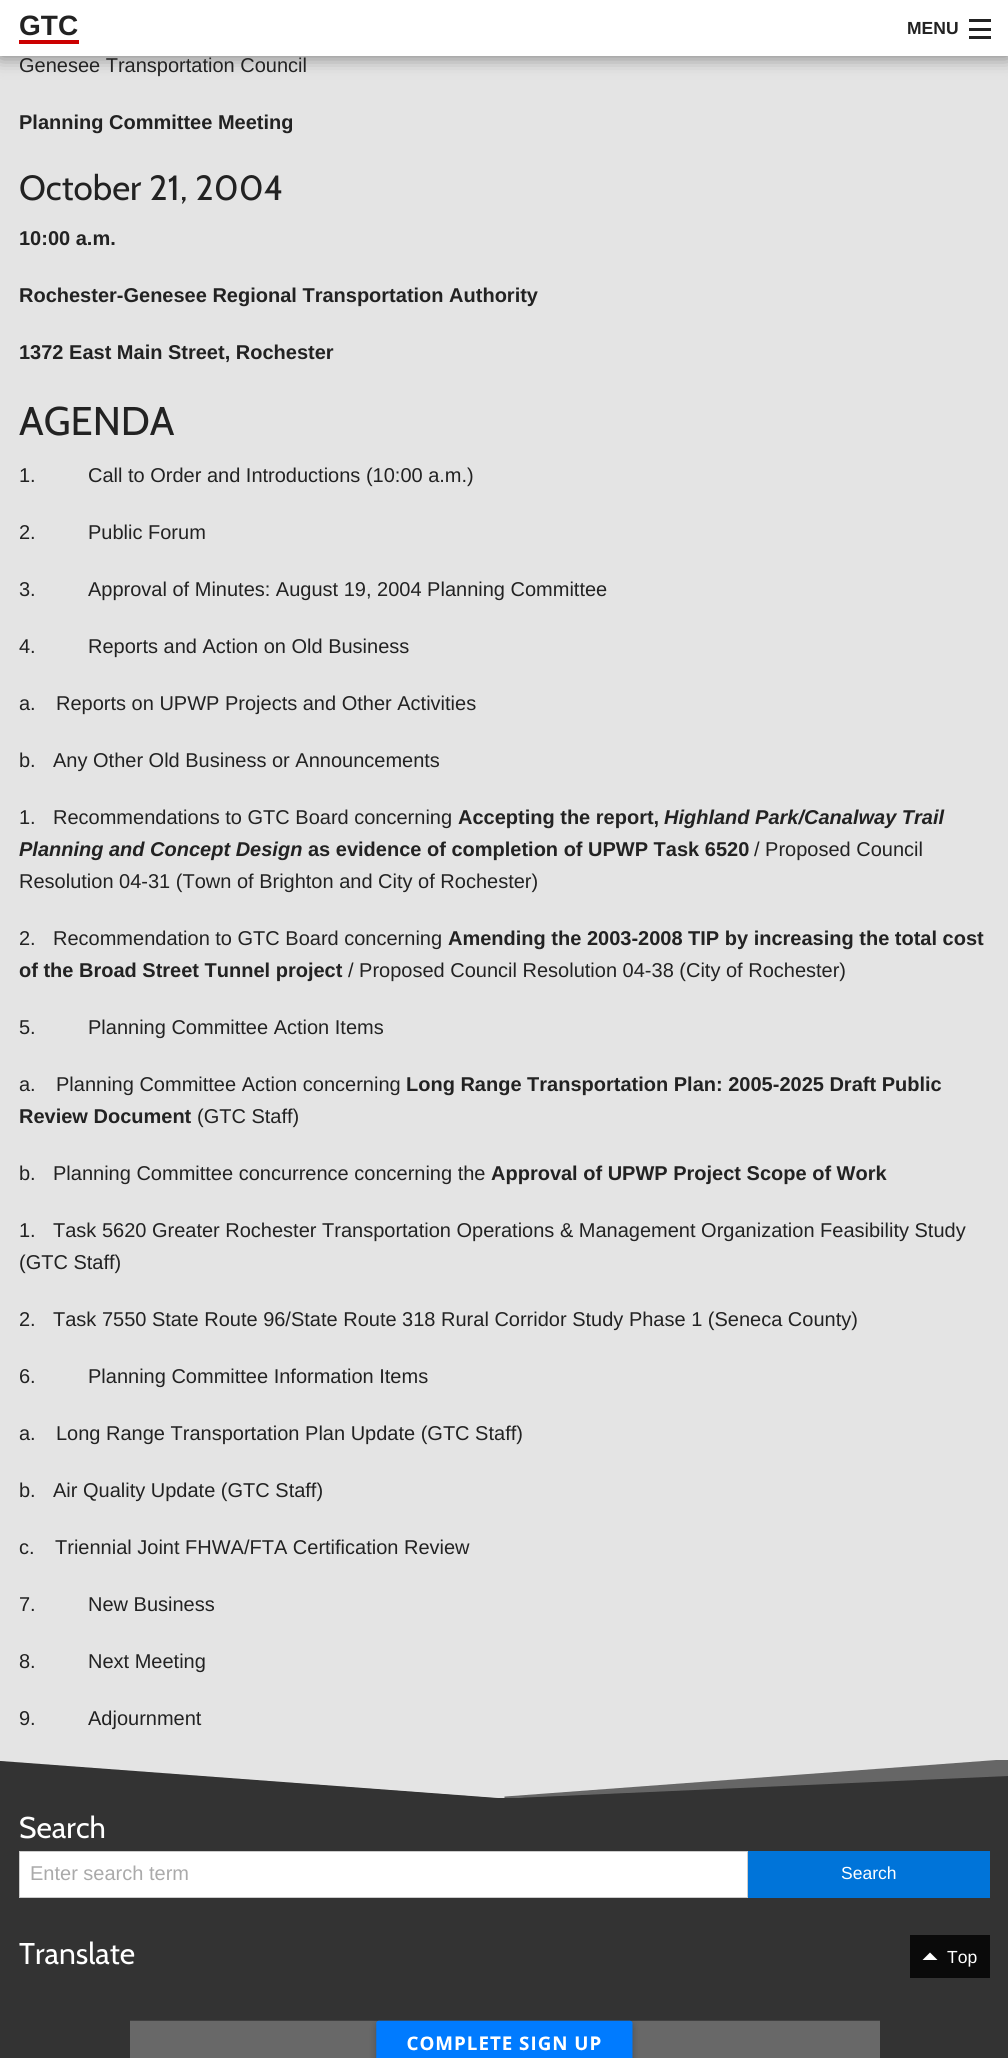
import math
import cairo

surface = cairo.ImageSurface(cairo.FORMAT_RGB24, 1008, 2058)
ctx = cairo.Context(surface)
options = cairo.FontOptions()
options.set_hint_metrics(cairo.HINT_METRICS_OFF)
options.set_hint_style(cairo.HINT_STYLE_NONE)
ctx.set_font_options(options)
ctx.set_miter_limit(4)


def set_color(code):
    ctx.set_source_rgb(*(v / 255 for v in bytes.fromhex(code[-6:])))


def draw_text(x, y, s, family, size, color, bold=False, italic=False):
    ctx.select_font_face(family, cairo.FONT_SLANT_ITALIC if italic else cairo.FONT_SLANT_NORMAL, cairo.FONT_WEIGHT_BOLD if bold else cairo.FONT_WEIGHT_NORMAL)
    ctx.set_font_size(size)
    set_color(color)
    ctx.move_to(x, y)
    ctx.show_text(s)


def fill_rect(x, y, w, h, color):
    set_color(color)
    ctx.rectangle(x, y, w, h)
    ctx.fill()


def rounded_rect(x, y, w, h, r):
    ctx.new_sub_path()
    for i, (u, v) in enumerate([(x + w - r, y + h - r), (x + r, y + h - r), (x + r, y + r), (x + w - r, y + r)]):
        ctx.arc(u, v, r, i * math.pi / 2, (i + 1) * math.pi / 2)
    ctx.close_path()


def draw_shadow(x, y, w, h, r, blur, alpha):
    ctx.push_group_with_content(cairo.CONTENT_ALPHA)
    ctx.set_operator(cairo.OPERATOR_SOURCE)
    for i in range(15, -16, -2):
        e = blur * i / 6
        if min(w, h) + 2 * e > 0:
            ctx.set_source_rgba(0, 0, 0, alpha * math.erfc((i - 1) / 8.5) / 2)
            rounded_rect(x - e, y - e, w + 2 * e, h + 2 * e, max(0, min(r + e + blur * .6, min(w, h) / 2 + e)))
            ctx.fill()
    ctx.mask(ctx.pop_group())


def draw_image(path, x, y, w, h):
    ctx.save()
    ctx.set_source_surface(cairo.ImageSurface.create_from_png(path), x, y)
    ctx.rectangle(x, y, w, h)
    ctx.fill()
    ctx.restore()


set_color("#e4e4e4")
ctx.paint()
set_color("#000000")
draw_shadow(0, 0, 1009, 56, 0, 9.5, 0.5)
fill_rect(0, 0, 1008, 56, "#ffffff")
fill_rect(19, 40, 60, 4, "#cc0000")
draw_text(19, 35, "GTC", "Liberation Sans", 28, "#222222", bold=True)
draw_text(907, 34, "MENU", "Liberation Sans", 17.5, "#222222", bold=True)
fill_rect(969, 36, 22, 3, "#222222")
fill_rect(969, 28, 22, 3, "#222222")
fill_rect(969, 19, 22, 3, "#222222")
draw_text(19, 72, "Genesee Transportation Council", "Liberation Sans", 20, "#222222")
draw_text(19, 129, "Planning Committee Meeting", "Liberation Sans", 20, "#222222", bold=True)
draw_text(19, 200, "October 21, 2004", "Cabin", 35, "#222222")
draw_text(19, 245, "10:00 a.m.", "Liberation Sans", 20, "#222222", bold=True)
draw_text(19, 302, "Rochester-Genesee Regional Transportation Authority", "Liberation Sans", 20, "#222222", bold=True)
draw_text(19, 359, "1372 East Main Street, Rochester", "Liberation Sans", 20, "#222222", bold=True)
draw_text(19, 435, "AGENDA", "Cabin", 40, "#222222")
draw_text(19, 482, "1.", "Liberation Sans", 20, "#222222")
draw_text(88, 482, "Call to Order and Introductions (10:00 a.m.)", "Liberation Sans", 20, "#222222")
draw_text(19, 539, "2.", "Liberation Sans", 20, "#222222")
draw_text(88, 539, "Public Forum", "Liberation Sans", 20, "#222222")
draw_text(19, 596, "3.", "Liberation Sans", 20, "#222222")
draw_text(88, 596, "Approval of Minutes: August 19, 2004 Planning Committee", "Liberation Sans", 20, "#222222")
draw_text(19, 653, "4.", "Liberation Sans", 20, "#222222")
draw_text(88, 653, "Reports and Action on Old Business", "Liberation Sans", 20, "#222222")
draw_text(19, 710, "a.", "Liberation Sans", 20, "#222222")
draw_text(56, 710, "Reports on UPWP Projects and Other Activities", "Liberation Sans", 20, "#222222")
draw_text(19, 767, "b.", "Liberation Sans", 20, "#222222")
draw_text(53, 767, "Any Other Old Business or Announcements", "Liberation Sans", 20, "#222222")
draw_text(19, 824, "1.", "Liberation Sans", 20, "#222222")
draw_text(53, 824, "Recommendations to GTC Board concerning", "Liberation Sans", 20, "#222222")
draw_text(458, 824, "Accepting the report,", "Liberation Sans", 20, "#222222", bold=True)
draw_text(664, 824, "Highland Park/Canalway Trail", "Liberation Sans", 20, "#222222", bold=True, italic=True)
draw_text(19, 856, "Planning and Concept Design", "Liberation Sans", 20, "#222222", bold=True, italic=True)
draw_text(308, 856, "as evidence of completion of UPWP Task 6520", "Liberation Sans", 20, "#222222", bold=True)
draw_text(754, 856, "/ Proposed Council", "Liberation Sans", 20, "#222222")
draw_text(19, 888, "Resolution 04-31 (Town of Brighton and City of Rochester)", "Liberation Sans", 20, "#222222")
draw_text(19, 945, "2.", "Liberation Sans", 20, "#222222")
draw_text(53, 945, "Recommendation to GTC Board concerning", "Liberation Sans", 20, "#222222")
draw_text(448, 945, "Amending the 2003-2008 TIP by increasing the total cost", "Liberation Sans", 20, "#222222", bold=True)
draw_text(19, 977, "of the Broad Street Tunnel project", "Liberation Sans", 20, "#222222", bold=True)
draw_text(348, 977, "/ Proposed Council Resolution 04-38 (City of Rochester)", "Liberation Sans", 20, "#222222")
draw_text(19, 1034, "5.", "Liberation Sans", 20, "#222222")
draw_text(88, 1034, "Planning Committee Action Items", "Liberation Sans", 20, "#222222")
draw_text(19, 1091, "a.", "Liberation Sans", 20, "#222222")
draw_text(56, 1091, "Planning Committee Action concerning", "Liberation Sans", 20, "#222222")
draw_text(406, 1091, "Long Range Transportation Plan: 2005-2025 Draft Public", "Liberation Sans", 20, "#222222", bold=True)
draw_text(19, 1123, "Review Document", "Liberation Sans", 20, "#222222", bold=True)
draw_text(197, 1123, "(GTC Staff)", "Liberation Sans", 20, "#222222")
draw_text(19, 1180, "b.", "Liberation Sans", 20, "#222222")
draw_text(53, 1180, "Planning Committee concurrence concerning the", "Liberation Sans", 20, "#222222")
draw_text(491, 1180, "Approval of UPWP Project Scope of Work", "Liberation Sans", 20, "#222222", bold=True)
draw_text(19, 1237, "1.", "Liberation Sans", 20, "#222222")
draw_text(53, 1237, "Task 5620 Greater Rochester Transportation Operations & Management Organization Feasibility Study", "Liberation Sans", 20, "#222222")
draw_text(19, 1269, "(GTC Staff)", "Liberation Sans", 20, "#222222")
draw_text(19, 1326, "2.", "Liberation Sans", 20, "#222222")
draw_text(53, 1326, "Task 7550 State Route 96/State Route 318 Rural Corridor Study Phase 1 (Seneca County)", "Liberation Sans", 20, "#222222")
draw_text(19, 1383, "6.", "Liberation Sans", 20, "#222222")
draw_text(88, 1383, "Planning Committee Information Items", "Liberation Sans", 20, "#222222")
draw_text(19, 1440, "a.", "Liberation Sans", 20, "#222222")
draw_text(56, 1440, "Long Range Transportation Plan Update (GTC Staff)", "Liberation Sans", 20, "#222222")
draw_text(19, 1497, "b.", "Liberation Sans", 20, "#222222")
draw_text(53, 1497, "Air Quality Update (GTC Staff)", "Liberation Sans", 20, "#222222")
draw_text(19, 1554, "c.", "Liberation Sans", 20, "#222222")
draw_text(55, 1554, "Triennial Joint FHWA/FTA Certification Review", "Liberation Sans", 20, "#222222")
draw_text(19, 1611, "7.", "Liberation Sans", 20, "#222222")
draw_text(88, 1611, "New Business", "Liberation Sans", 20, "#222222")
draw_text(19, 1668, "8.", "Liberation Sans", 20, "#222222")
draw_text(88, 1668, "Next Meeting", "Liberation Sans", 20, "#222222")
draw_text(19, 1725, "9.", "Liberation Sans", 20, "#222222")
draw_text(88, 1725, "Adjournment", "Liberation Sans", 20, "#222222")
fill_rect(0, 1760, 1008, 298, "#333333")
set_color("#e4e4e4")
ctx.new_path()
ctx.move_to(0, 1760)
ctx.line_to(504, 1798)
ctx.line_to(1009, 1760)
ctx.close_path()
ctx.fill()
ctx.save()
ctx.rectangle(0, 1760, 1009, 38)
ctx.clip()
ctx.new_path()
ctx.move_to(0, 1760)
ctx.line_to(504.5, 1797.5)
ctx.line_to(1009, 1760)
ctx.close_path()
ctx.set_line_width(1.9)
ctx.stroke()
ctx.restore()
set_color("#666666")
ctx.new_path()
ctx.move_to(504, 1798)
ctx.line_to(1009, 1775)
ctx.line_to(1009, 1760)
ctx.close_path()
ctx.fill()
ctx.save()
ctx.rectangle(0, 1760, 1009, 38)
ctx.clip()
ctx.new_path()
ctx.move_to(504.5, 1797.5)
ctx.line_to(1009, 1775)
ctx.line_to(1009, 1760)
ctx.close_path()
ctx.set_line_width(1.9)
ctx.stroke()
ctx.restore()
draw_text(19, 1838, "Search", "Cabin", 30, "#ffffff")
ctx.rectangle(19.5, 1851.5, 728, 46)
ctx.fill_preserve()
set_color("#cccccc")
ctx.set_line_width(1)
ctx.stroke()
draw_text(30, 1880, "Enter search term", "Liberation Sans", 20, "#aaaaaa")
fill_rect(748, 1851, 242, 47, "#0074d9")
draw_text(841, 1879, "Search", "Liberation Sans", 17.5, "#ffffff")
draw_text(19, 1964, "Translate", "Cabin", 30, "#ffffff")
draw_image("assets/img1.png", 130, 2020, 750, 38)
fill_rect(910, 1935, 80, 43, "#0a0a0a")
set_color("#ffffff")
ctx.new_path()
ctx.move_to(937.5, 1960)
ctx.line_to(922.5, 1960)
ctx.line_to(930, 1952.5)
ctx.close_path()
ctx.fill()
draw_text(947, 1963, "Top", "Liberation Sans", 17.5, "#ffffff")
surface.write_to_png("output.png")
